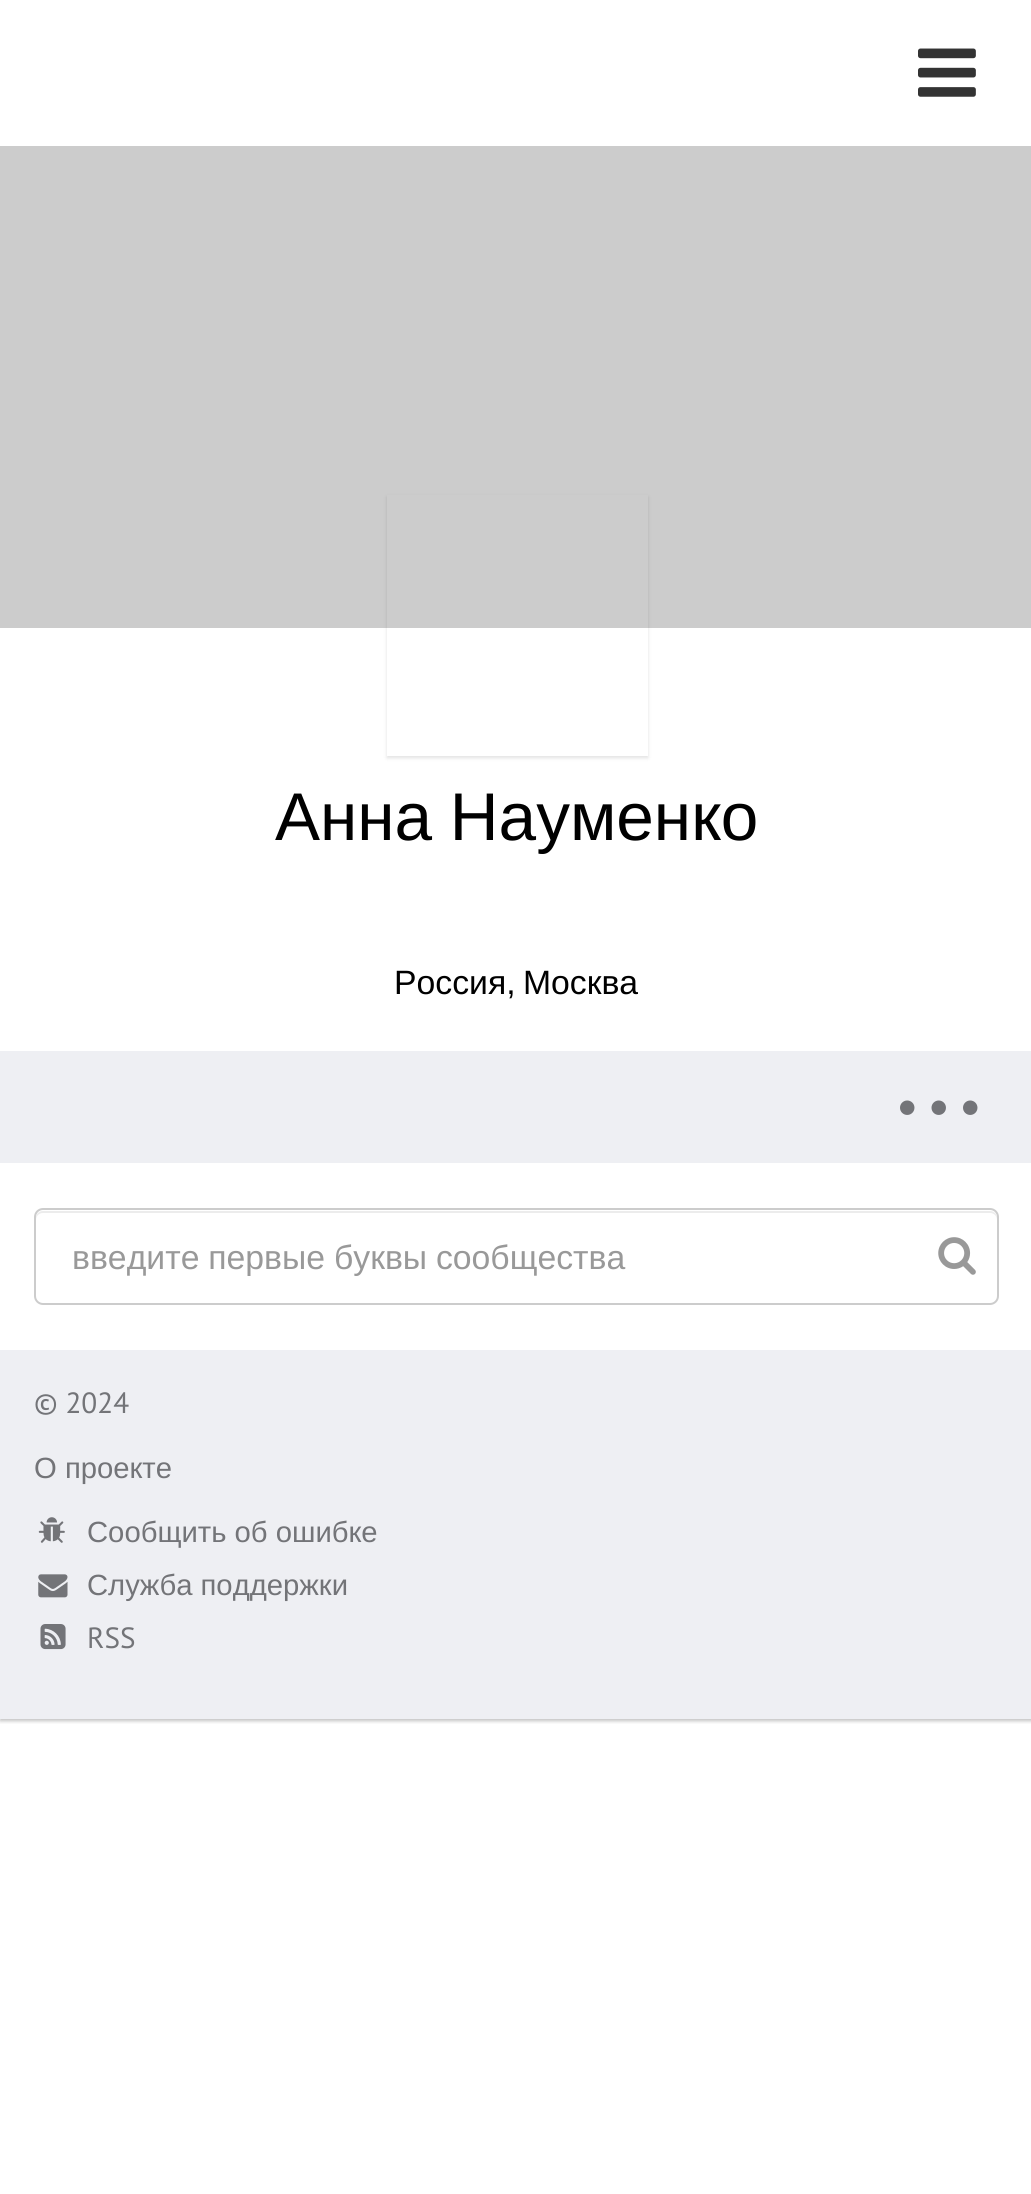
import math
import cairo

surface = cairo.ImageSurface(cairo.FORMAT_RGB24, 1031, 2194)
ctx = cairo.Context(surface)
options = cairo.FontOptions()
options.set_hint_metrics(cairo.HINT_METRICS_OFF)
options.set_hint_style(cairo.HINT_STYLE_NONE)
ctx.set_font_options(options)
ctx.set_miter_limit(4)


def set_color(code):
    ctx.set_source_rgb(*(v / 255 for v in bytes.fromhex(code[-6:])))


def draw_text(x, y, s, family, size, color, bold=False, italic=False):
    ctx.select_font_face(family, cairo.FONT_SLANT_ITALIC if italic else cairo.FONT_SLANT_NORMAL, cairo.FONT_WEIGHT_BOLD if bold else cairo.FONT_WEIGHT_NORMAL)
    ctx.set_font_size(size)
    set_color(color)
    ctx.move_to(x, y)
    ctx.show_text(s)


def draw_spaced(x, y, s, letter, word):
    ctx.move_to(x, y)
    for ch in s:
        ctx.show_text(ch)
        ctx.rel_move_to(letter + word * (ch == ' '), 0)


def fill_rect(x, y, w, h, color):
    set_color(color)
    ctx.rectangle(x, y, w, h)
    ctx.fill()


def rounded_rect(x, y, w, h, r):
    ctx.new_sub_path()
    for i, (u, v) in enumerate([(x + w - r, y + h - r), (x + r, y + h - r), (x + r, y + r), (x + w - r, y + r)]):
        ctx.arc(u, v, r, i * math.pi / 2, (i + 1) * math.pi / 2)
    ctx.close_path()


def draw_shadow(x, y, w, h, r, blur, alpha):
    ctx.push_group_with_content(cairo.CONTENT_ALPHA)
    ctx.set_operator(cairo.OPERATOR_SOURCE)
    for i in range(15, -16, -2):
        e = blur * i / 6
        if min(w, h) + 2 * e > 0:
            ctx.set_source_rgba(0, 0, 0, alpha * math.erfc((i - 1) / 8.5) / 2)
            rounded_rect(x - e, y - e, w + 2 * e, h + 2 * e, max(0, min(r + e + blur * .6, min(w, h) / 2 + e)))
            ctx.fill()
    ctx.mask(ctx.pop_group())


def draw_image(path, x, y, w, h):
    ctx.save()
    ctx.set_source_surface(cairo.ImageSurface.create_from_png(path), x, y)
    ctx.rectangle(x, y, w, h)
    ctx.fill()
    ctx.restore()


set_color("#ffffff")
ctx.paint()
draw_image("assets/img1.png", 918, 48, 58, 49)
ctx.save()
ctx.rectangle(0, 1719, 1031, 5)
ctx.clip()
set_color("#000000")
draw_shadow(0, 149, 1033, 1572, 0, 2, 0.25)
ctx.restore()
fill_rect(0, 1051, 1031, 112, "#eeeff3")
fill_rect(0, 146, 1031, 482, "#cccccc")
ctx.save()
ctx.set_fill_rule(cairo.FILL_RULE_EVEN_ODD)
ctx.new_path()
ctx.move_to(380, 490)
ctx.line_to(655, 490)
ctx.line_to(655, 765)
ctx.line_to(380, 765)
ctx.close_path()
ctx.move_to(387, 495)
ctx.line_to(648, 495)
ctx.line_to(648, 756)
ctx.line_to(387, 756)
ctx.close_path()
ctx.clip()
set_color("#000000")
draw_shadow(387, 497, 261, 261, 0, 2, 0.12)
ctx.restore()
ctx.select_font_face("Liberation Sans")
ctx.set_font_size(67.5)
set_color("#000000")
draw_spaced(275, 840, "Анна Науменко", 0, -1)
ctx.set_font_size(33.75)
draw_spaced(394, 994, "Россия, Москва", 0, -2)
draw_image("assets/img2.png", 900, 1100, 15, 15)
draw_image("assets/img3.png", 931, 1100, 15, 15)
draw_image("assets/img2.png", 963, 1100, 15, 15)
set_color("#ececec")
ctx.new_path()
ctx.move_to(43, 1213)
ctx.line_to(990, 1213)
ctx.curve_to(994, 1213, 997, 1216, 997, 1220)
ctx.line_to(997, 1218)
ctx.curve_to(997, 1214, 994, 1211, 990, 1211)
ctx.line_to(43, 1211)
ctx.curve_to(39, 1211, 36, 1214, 36, 1218)
ctx.line_to(36, 1220)
ctx.curve_to(36, 1216, 39, 1213, 43, 1213)
ctx.close_path()
ctx.fill()
rounded_rect(35, 1209, 963, 95, 8)
set_color("#cccccc")
ctx.stroke()
set_color("#999999")
draw_spaced(72, 1269, "введите первые буквы сообщества", 0, -0.5)
draw_image("assets/img4.png", 938, 1237, 38, 38)
fill_rect(0, 1350, 1031, 369, "#eeeff3")
draw_text(34, 1413, "© 2024", "PT Sans", 29.25, "#737478")
draw_text(34, 1478, "О проекте", "Liberation Sans", 29.25, "#737478")
draw_image("assets/img5.png", 38, 1517, 27, 26)
draw_text(87, 1542, "Сообщить об ошибке", "Liberation Sans", 29.25, "#737478")
draw_image("assets/img6.png", 38, 1574, 30, 24)
draw_text(87, 1595, "Служба поддержки", "Liberation Sans", 29.25, "#737478")
draw_image("assets/img7.png", 40, 1624, 26, 26)
draw_text(87, 1648, "RSS", "PT Sans", 29.25, "#737478")
surface.write_to_png("output.png")
